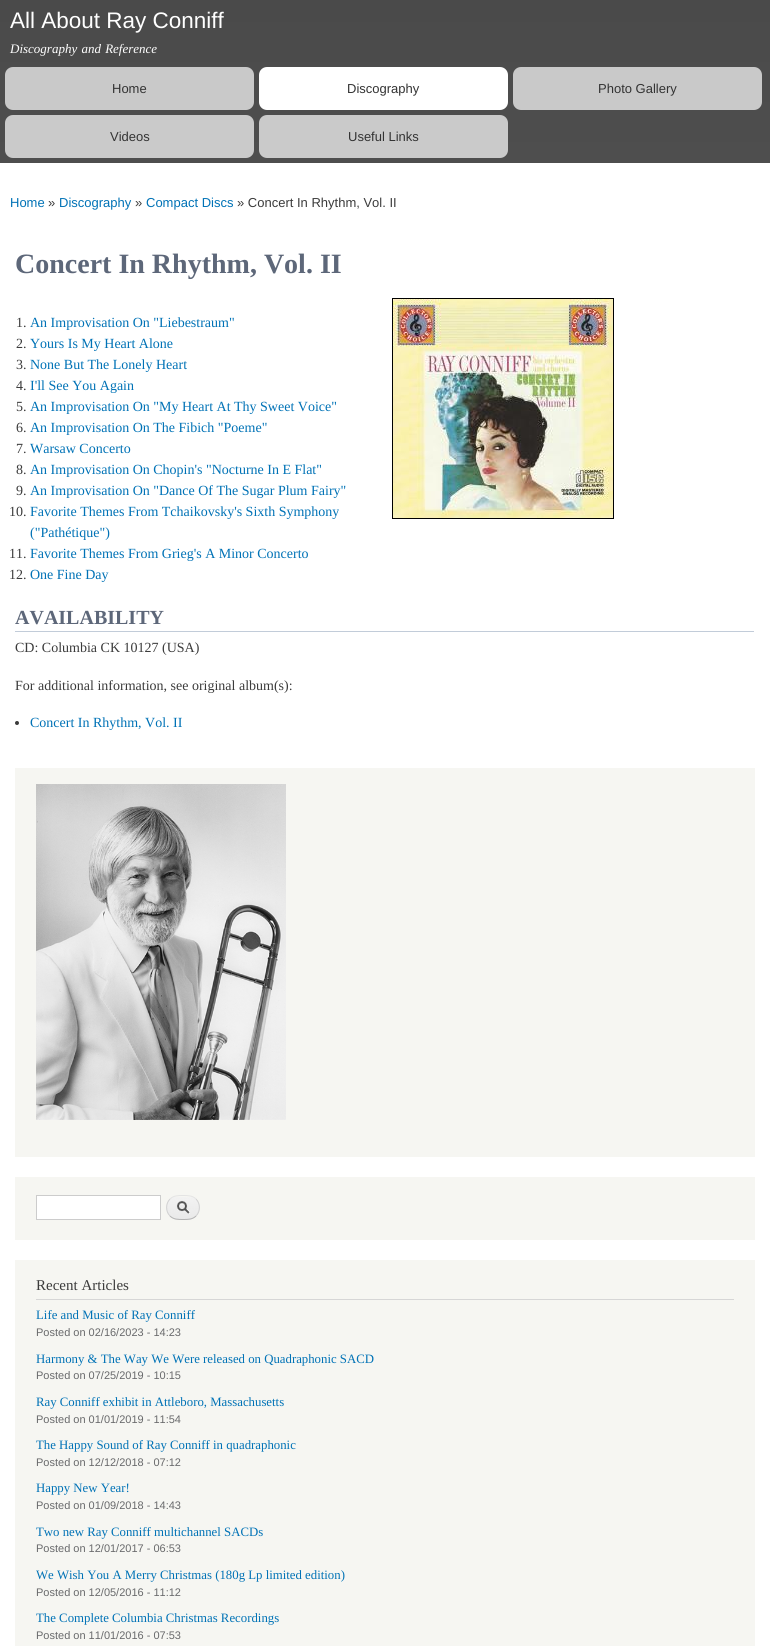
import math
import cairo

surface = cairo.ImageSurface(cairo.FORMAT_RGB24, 770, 1646)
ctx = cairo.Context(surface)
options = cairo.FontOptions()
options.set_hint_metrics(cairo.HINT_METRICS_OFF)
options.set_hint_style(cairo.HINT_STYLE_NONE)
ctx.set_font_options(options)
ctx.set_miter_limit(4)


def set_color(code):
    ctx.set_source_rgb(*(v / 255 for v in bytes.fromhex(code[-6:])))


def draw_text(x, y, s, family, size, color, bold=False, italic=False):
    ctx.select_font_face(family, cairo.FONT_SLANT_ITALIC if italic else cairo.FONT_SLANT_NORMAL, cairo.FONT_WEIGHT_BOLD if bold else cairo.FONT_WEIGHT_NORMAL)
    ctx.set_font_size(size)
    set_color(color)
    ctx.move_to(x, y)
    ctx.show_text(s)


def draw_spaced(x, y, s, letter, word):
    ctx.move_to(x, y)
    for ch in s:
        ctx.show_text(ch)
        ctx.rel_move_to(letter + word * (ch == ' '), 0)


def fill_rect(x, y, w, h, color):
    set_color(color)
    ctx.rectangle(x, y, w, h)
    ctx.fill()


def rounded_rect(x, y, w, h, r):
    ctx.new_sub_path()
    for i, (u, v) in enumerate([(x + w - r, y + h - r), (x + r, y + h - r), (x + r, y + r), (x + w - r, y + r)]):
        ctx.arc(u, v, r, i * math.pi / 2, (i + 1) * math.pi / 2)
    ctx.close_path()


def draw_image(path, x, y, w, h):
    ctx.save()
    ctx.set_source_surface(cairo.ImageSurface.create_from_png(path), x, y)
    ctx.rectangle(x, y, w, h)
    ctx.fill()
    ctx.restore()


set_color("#ffffff")
ctx.paint()
gradient = cairo.LinearGradient(385, 0, 385, 163)
gradient.add_color_stop_rgba(0, 0.29, 0.29, 0.29, 1)
gradient.add_color_stop_rgba(1, 0.306, 0.306, 0.306, 1)
ctx.set_source(gradient)
ctx.rectangle(0, 0, 770, 163)
ctx.fill()
draw_text(10, 28, "All About Ray Conniff", "Liberation Sans", 22.5, "#ffffff")
ctx.select_font_face("Liberation Serif", cairo.FONT_SLANT_ITALIC)
ctx.set_font_size(13)
draw_spaced(10, 53, "Discography and Reference", 0, 1)
set_color("#c9c9c9")
rounded_rect(5, 67, 249, 43, 8)
ctx.fill()
draw_text(112, 93, "Home", "Liberation Sans", 13, "#333333")
set_color("#ffffff")
rounded_rect(259, 67, 249, 43, 8)
ctx.fill()
draw_text(347, 93, "Discography", "Liberation Sans", 13, "#333333")
set_color("#c9c9c9")
rounded_rect(513, 67, 249, 43, 8)
ctx.fill()
draw_text(598, 93, "Photo Gallery", "Liberation Sans", 13, "#333333")
set_color("#cacaca")
rounded_rect(5, 115, 249, 43, 8)
ctx.fill()
draw_text(110, 141, "Videos", "Liberation Sans", 13, "#333333")
set_color("#cacaca")
rounded_rect(259, 115, 249, 43, 8)
ctx.fill()
draw_text(348, 141, "Useful Links", "Liberation Sans", 13, "#333333")
draw_text(10, 207, "Home", "Liberation Sans", 13, "#0072b6")
draw_text(48, 207, "»", "Liberation Sans", 13, "#3b3b3b")
draw_text(59, 207, "Discography", "Liberation Sans", 13, "#0072b6")
draw_text(135, 207, "»", "Liberation Sans", 13, "#3b3b3b")
draw_text(146, 207, "Compact Discs", "Liberation Sans", 13, "#0072b6")
draw_text(237, 207, "» Concert In Rhythm, Vol. II", "Liberation Sans", 13, "#3b3b3b")
draw_text(15, 273, "Concert In Rhythm, Vol. II", "Liberation Serif", 28, "#5d6779", bold=True)
draw_text(16, 327, "1.", "Liberation Serif", 14, "#3b3b3b")
draw_text(30, 327, "An Improvisation On \"Liebestraum\"", "Liberation Serif", 14, "#0072b6")
draw_text(16, 348, "2.", "Liberation Serif", 14, "#3b3b3b")
draw_text(30, 348, "Yours Is My Heart Alone", "Liberation Serif", 14, "#0072b6")
draw_text(16, 369, "3.", "Liberation Serif", 14, "#3b3b3b")
draw_text(30, 369, "None But The Lonely Heart", "Liberation Serif", 14, "#0072b6")
draw_text(16, 390, "4.", "Liberation Serif", 14, "#3b3b3b")
draw_text(30, 390, "I'll See You Again", "Liberation Serif", 14, "#0072b6")
draw_text(16, 411, "5.", "Liberation Serif", 14, "#3b3b3b")
draw_text(30, 411, "An Improvisation On \"My Heart At Thy Sweet Voice\"", "Liberation Serif", 14, "#0072b6")
draw_text(16, 432, "6.", "Liberation Serif", 14, "#3b3b3b")
draw_text(30, 432, "An Improvisation On The Fibich \"Poeme\"", "Liberation Serif", 14, "#0072b6")
draw_text(16, 453, "7.", "Liberation Serif", 14, "#3b3b3b")
draw_text(30, 453, "Warsaw Concerto", "Liberation Serif", 14, "#0072b6")
draw_text(16, 474, "8.", "Liberation Serif", 14, "#3b3b3b")
draw_text(30, 474, "An Improvisation On Chopin's \"Nocturne In E Flat\"", "Liberation Serif", 14, "#0072b6")
draw_text(16, 495, "9.", "Liberation Serif", 14, "#3b3b3b")
draw_text(30, 495, "An Improvisation On \"Dance Of The Sugar Plum Fairy\"", "Liberation Serif", 14, "#0072b6")
draw_text(9, 516, "10.", "Liberation Serif", 14, "#3b3b3b")
draw_text(30, 516, "Favorite Themes From Tchaikovsky's Sixth Symphony", "Liberation Serif", 14, "#0072b6")
draw_text(30, 537, "(\"Pathétique\")", "Liberation Serif", 14, "#0072b6")
draw_text(9, 558, "11.", "Liberation Serif", 14, "#3b3b3b")
draw_text(30, 558, "Favorite Themes From Grieg's A Minor Concerto", "Liberation Serif", 14, "#0072b6")
draw_text(9, 579, "12.", "Liberation Serif", 14, "#3b3b3b")
draw_text(30, 579, "One Fine Day", "Liberation Serif", 14, "#0072b6")
ctx.rectangle(392.5, 298.5, 221, 220)
set_color("#000000")
ctx.set_line_width(1)
ctx.stroke()
draw_image("assets/img1.png", 393, 299, 220, 219)
fill_rect(15, 631, 739, 1, "#c2ccd9")
draw_text(15, 624, "AVAILABILITY", "Liberation Serif", 20, "#5d6779", bold=True)
draw_text(15, 652, "CD: Columbia CK 10127 (USA)", "Liberation Serif", 14, "#3b3b3b")
draw_text(15, 690, "For additional information, see original album(s):", "Liberation Serif", 14, "#3b3b3b")
ctx.new_path()
ctx.arc(17, 723, 2, 0, 2 * math.pi)
ctx.fill()
draw_text(30, 727, "Concert In Rhythm, Vol. II", "Liberation Serif", 14, "#0072b6")
fill_rect(15, 768, 740, 389, "#f6f6f2")
draw_image("assets/img2.png", 36, 784, 250, 336)
fill_rect(15, 1177, 740, 63, "#f6f6f2")
set_color("#ffffff")
ctx.rectangle(36.5, 1195.5, 124, 24)
ctx.fill_preserve()
set_color("#cccccc")
ctx.stroke()
draw_image("assets/img3.png", 166, 1197, 34, 23)
ctx.new_path()
ctx.move_to(170, 1199)
ctx.curve_to(173.5, 1195.5, 178, 1195.5, 183, 1195.5)
ctx.curve_to(188, 1195.5, 192.5, 1195.5, 196, 1199)
set_color("#e4e4e4")
ctx.stroke()
ctx.new_path()
ctx.move_to(196, 1199)
ctx.curve_to(200.5, 1203.5, 200.5, 1211.5, 196, 1216)
set_color("#d2d2d2")
ctx.stroke()
ctx.new_path()
ctx.move_to(196, 1216)
ctx.curve_to(192.5, 1219.5, 188, 1219.5, 183, 1219.5)
ctx.curve_to(178, 1219.5, 173.5, 1219.5, 170, 1216)
set_color("#b4b4b4")
ctx.stroke()
ctx.new_path()
ctx.move_to(170, 1216)
ctx.curve_to(165.5, 1211.5, 165.5, 1203.5, 170, 1199)
set_color("#d2d2d2")
ctx.stroke()
fill_rect(15, 1260, 740, 386, "#f6f6f2")
fill_rect(36, 1299, 698, 1, "#d6d6d6")
draw_text(36, 1290, "Recent Articles", "Liberation Serif", 15, "#3b3b3b")
draw_text(36, 1319, "Life and Music of Ray Conniff", "Liberation Serif", 12.8, "#0072b6")
draw_text(36, 1336, "Posted on 02/16/2023 - 14:23", "Liberation Sans", 11, "#68696b")
draw_text(36, 1363, "Harmony & The Way We Were released on Quadraphonic SACD", "Liberation Serif", 12.8, "#0072b6")
draw_text(36, 1379, "Posted on 07/25/2019 - 10:15", "Liberation Sans", 11, "#68696b")
draw_text(36, 1406, "Ray Conniff exhibit in Attleboro, Massachusetts", "Liberation Serif", 12.8, "#0072b6")
draw_text(36, 1423, "Posted on 01/01/2019 - 11:54", "Liberation Sans", 11, "#68696b")
draw_text(36, 1449, "The Happy Sound of Ray Conniff in quadraphonic", "Liberation Serif", 12.8, "#0072b6")
draw_text(36, 1466, "Posted on 12/12/2018 - 07:12", "Liberation Sans", 11, "#68696b")
draw_text(36, 1492, "Happy New Year!", "Liberation Serif", 12.8, "#0072b6")
draw_text(36, 1509, "Posted on 01/09/2018 - 14:43", "Liberation Sans", 11, "#68696b")
draw_text(36, 1536, "Two new Ray Conniff multichannel SACDs", "Liberation Serif", 12.8, "#0072b6")
draw_text(36, 1552, "Posted on 12/01/2017 - 06:53", "Liberation Sans", 11, "#68696b")
draw_text(36, 1579, "We Wish You A Merry Christmas (180g Lp limited edition)", "Liberation Serif", 12.8, "#0072b6")
draw_text(36, 1596, "Posted on 12/05/2016 - 11:12", "Liberation Sans", 11, "#68696b")
draw_text(36, 1622, "The Complete Columbia Christmas Recordings", "Liberation Serif", 12.8, "#0072b6")
draw_text(36, 1639, "Posted on 11/01/2016 - 07:53", "Liberation Sans", 11, "#68696b")
surface.write_to_png("output.png")
